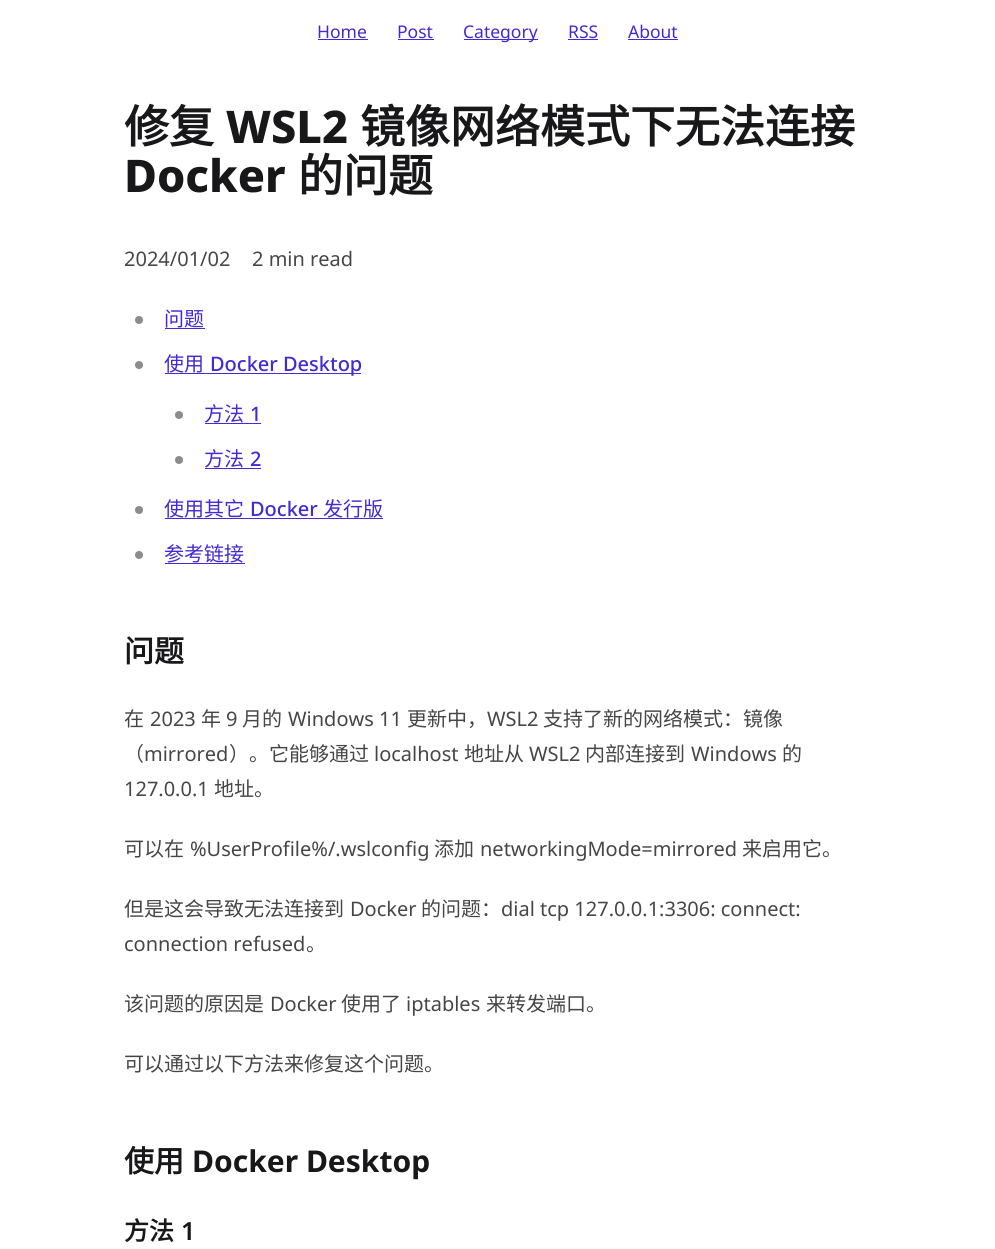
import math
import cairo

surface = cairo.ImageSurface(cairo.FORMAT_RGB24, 995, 1249)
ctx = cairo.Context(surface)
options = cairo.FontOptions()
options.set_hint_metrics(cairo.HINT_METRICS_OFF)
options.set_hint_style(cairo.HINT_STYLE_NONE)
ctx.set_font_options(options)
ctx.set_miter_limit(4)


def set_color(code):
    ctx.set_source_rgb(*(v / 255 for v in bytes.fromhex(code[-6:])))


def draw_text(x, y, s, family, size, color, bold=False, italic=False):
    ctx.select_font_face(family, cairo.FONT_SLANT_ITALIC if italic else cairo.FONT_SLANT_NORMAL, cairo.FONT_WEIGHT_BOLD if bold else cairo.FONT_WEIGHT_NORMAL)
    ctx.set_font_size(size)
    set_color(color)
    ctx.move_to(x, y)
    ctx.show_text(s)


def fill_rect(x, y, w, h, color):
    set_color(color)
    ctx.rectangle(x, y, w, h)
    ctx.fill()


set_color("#ffffff")
ctx.paint()
draw_text(317, 38, "Home", "Noto Sans", 17.5, "#422ad5")
fill_rect(318, 39, 50, 1, "#422ad5")
draw_text(397, 38, "Post", "Noto Sans", 17.5, "#422ad5")
fill_rect(398, 39, 36, 1, "#422ad5")
fill_rect(464, 39, 74, 1, "#422ad5")
draw_text(463, 38, "Category", "Noto Sans", 17.5, "#422ad5")
draw_text(568, 38, "RSS", "Noto Sans", 17.5, "#422ad5")
fill_rect(568, 39, 30, 1, "#422ad5")
draw_text(628, 38, "About", "Noto Sans", 17.5, "#422ad5")
fill_rect(628, 39, 50, 1, "#422ad5")
draw_text(124, 143, "修复", "Noto Sans CJK SC", 45, "#18181b", bold=True)
draw_text(226, 143, "WSL2", "Noto Sans ExtraBold", 45, "#18181b")
draw_text(360, 143, "镜像网络模式下无法连接", "Noto Sans CJK SC", 45, "#18181b", bold=True)
draw_text(124, 192, "Docker", "Noto Sans ExtraBold", 45, "#18181b")
draw_text(298, 192, "的问题", "Noto Sans CJK SC", 45, "#18181b", bold=True)
draw_text(124, 266, "2024/01/02", "Noto Sans", 20, "#464649")
draw_text(252, 266, "2 min read", "Noto Sans", 20, "#464649")
set_color("#8c8c8d")
ctx.new_path()
ctx.arc(139, 320, 4, 0, 2 * math.pi)
ctx.fill()
draw_text(164, 326, "问题", "Noto Sans CJK SC", 20, "#422ad5")
fill_rect(165, 328, 40, 1, "#422ad5")
set_color("#8c8c8d")
ctx.new_path()
ctx.arc(139, 365, 4, 0, 2 * math.pi)
ctx.fill()
draw_text(164, 371, "使用", "Noto Sans CJK SC", 20, "#422ad5")
fill_rect(165, 373, 196, 1, "#422ad5")
draw_text(210, 371, "Docker Desktop", "Noto Sans Medium", 20, "#422ad5")
set_color("#8c8c8d")
ctx.new_path()
ctx.arc(179, 415, 4, 0, 2 * math.pi)
ctx.fill()
draw_text(204, 421, "方法", "Noto Sans CJK SC", 20, "#422ad5")
fill_rect(205, 423, 56, 1, "#422ad5")
draw_text(250, 421, "1", "Noto Sans Medium", 20, "#422ad5")
set_color("#8c8c8d")
ctx.new_path()
ctx.arc(179, 460, 4, 0, 2 * math.pi)
ctx.fill()
draw_text(204, 466, "方法", "Noto Sans CJK SC", 20, "#422ad5")
fill_rect(205, 468, 56, 1, "#422ad5")
draw_text(250, 466, "2", "Noto Sans Medium", 20, "#422ad5")
set_color("#8c8c8d")
ctx.new_path()
ctx.arc(139, 510, 4, 0, 2 * math.pi)
ctx.fill()
draw_text(164, 516, "使用其它", "Noto Sans CJK SC", 20, "#422ad5")
fill_rect(165, 518, 218, 1, "#422ad5")
draw_text(250, 516, "Docker", "Noto Sans Medium", 20, "#422ad5")
draw_text(323, 516, "发行版", "Noto Sans CJK SC", 20, "#422ad5")
set_color("#8c8c8d")
ctx.new_path()
ctx.arc(139, 555, 4, 0, 2 * math.pi)
ctx.fill()
draw_text(164, 561, "参考链接", "Noto Sans CJK SC", 20, "#422ad5")
fill_rect(165, 563, 80, 1, "#422ad5")
draw_text(124, 662, "问题", "Noto Sans CJK SC", 30, "#18181b", bold=True)
draw_text(124, 726, "在", "Noto Sans CJK SC", 20, "#464649")
draw_text(150, 726, "2023", "Noto Sans", 20, "#464649")
draw_text(201, 726, "年", "Noto Sans CJK SC", 20, "#464649")
draw_text(226, 726, "9", "Noto Sans", 20, "#464649")
draw_text(242, 726, "月的", "Noto Sans CJK SC", 20, "#464649")
draw_text(288, 726, "Windows 11", "Noto Sans", 20, "#464649")
draw_text(407, 726, "更新中，", "Noto Sans CJK SC", 20, "#464649")
draw_text(487, 726, "WSL2", "Noto Sans", 20, "#464649")
draw_text(543, 726, "支持了新的网络模式：镜像", "Noto Sans CJK SC", 20, "#464649")
draw_text(124, 761, "（", "Noto Sans CJK SC", 20, "#464649")
draw_text(144, 761, "mirrored", "Noto Sans", 20, "#464649")
draw_text(229, 761, "）。它能够通过", "Noto Sans CJK SC", 20, "#464649")
draw_text(374, 761, "localhost", "Noto Sans", 20, "#464649")
draw_text(464, 761, "地址从", "Noto Sans CJK SC", 20, "#464649")
draw_text(529, 761, "WSL2", "Noto Sans", 20, "#464649")
draw_text(585, 761, "内部连接到", "Noto Sans CJK SC", 20, "#464649")
draw_text(691, 761, "Windows", "Noto Sans", 20, "#464649")
draw_text(782, 761, "的", "Noto Sans CJK SC", 20, "#464649")
draw_text(124, 796, "127.0.0.1", "Noto Sans", 20, "#464649")
draw_text(214, 796, "地址。", "Noto Sans CJK SC", 20, "#464649")
draw_text(124, 856, "可以在", "Noto Sans CJK SC", 20, "#464649")
draw_text(190, 856, "%UserProfile%/.wslconfig", "Noto Sans", 20, "#464649")
draw_text(434, 856, "添加", "Noto Sans CJK SC", 20, "#464649")
draw_text(480, 856, "networkingMode=mirrored", "Noto Sans", 20, "#464649")
draw_text(742, 856, "来启用它。", "Noto Sans CJK SC", 20, "#464649")
draw_text(124, 916, "但是这会导致无法连接到", "Noto Sans CJK SC", 20, "#464649")
draw_text(350, 916, "Docker", "Noto Sans", 20, "#464649")
draw_text(421, 916, "的问题：", "Noto Sans CJK SC", 20, "#464649")
draw_text(501, 916, "dial tcp 127.0.0.1:3306: connect:", "Noto Sans", 20, "#464649")
draw_text(124, 951, "connection refused", "Noto Sans", 20, "#464649")
draw_text(306, 951, "。", "Noto Sans CJK SC", 20, "#464649")
draw_text(124, 1011, "该问题的原因是", "Noto Sans CJK SC", 20, "#464649")
draw_text(270, 1011, "Docker", "Noto Sans", 20, "#464649")
draw_text(341, 1011, "使用了", "Noto Sans CJK SC", 20, "#464649")
draw_text(406, 1011, "iptables", "Noto Sans", 20, "#464649")
draw_text(486, 1011, "来转发端口。", "Noto Sans CJK SC", 20, "#464649")
draw_text(124, 1071, "可以通过以下方法来修复这个问题。", "Noto Sans CJK SC", 20, "#464649")
draw_text(124, 1172, "使用", "Noto Sans CJK SC", 30, "#18181b", bold=True)
draw_text(192, 1172, "Docker Desktop", "Noto Sans", 30, "#18181b", bold=True)
draw_text(124, 1240, "方法", "Noto Sans CJK SC", 25, "#18181b", bold=True)
draw_text(181, 1240, "1", "Noto Sans SemiBold", 25, "#18181b")
surface.write_to_png("output.png")
